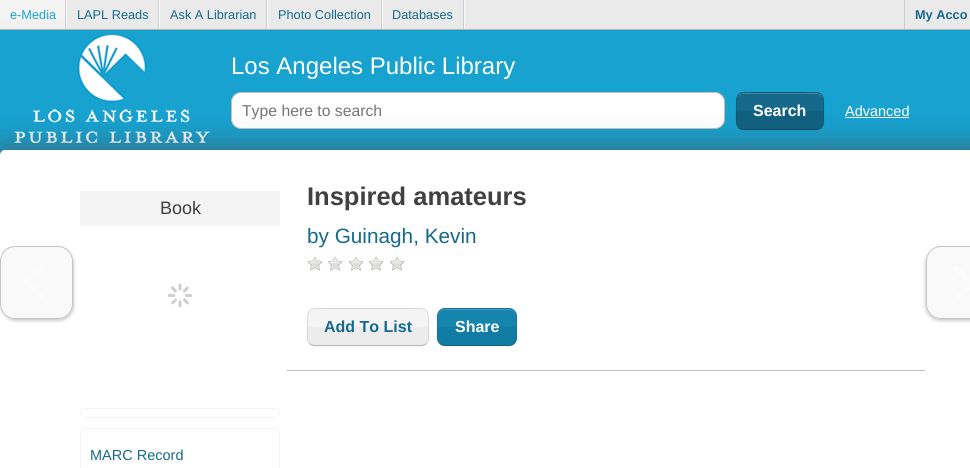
import math
import cairo

surface = cairo.ImageSurface(cairo.FORMAT_RGB24, 970, 468)
ctx = cairo.Context(surface)
options = cairo.FontOptions()
options.set_hint_metrics(cairo.HINT_METRICS_OFF)
options.set_hint_style(cairo.HINT_STYLE_NONE)
ctx.set_font_options(options)
ctx.set_miter_limit(4)


def set_color(code):
    ctx.set_source_rgb(*(v / 255 for v in bytes.fromhex(code[-6:])))


def draw_text(x, y, s, family, size, color, bold=False, italic=False):
    ctx.select_font_face(family, cairo.FONT_SLANT_ITALIC if italic else cairo.FONT_SLANT_NORMAL, cairo.FONT_WEIGHT_BOLD if bold else cairo.FONT_WEIGHT_NORMAL)
    ctx.set_font_size(size)
    set_color(color)
    ctx.move_to(x, y)
    ctx.show_text(s)


def fill_rect(x, y, w, h, color):
    set_color(color)
    ctx.rectangle(x, y, w, h)
    ctx.fill()


def rounded_rect(x, y, w, h, r):
    ctx.new_sub_path()
    for i, (u, v) in enumerate([(x + w - r, y + h - r), (x + r, y + h - r), (x + r, y + r), (x + w - r, y + r)]):
        ctx.arc(u, v, r, i * math.pi / 2, (i + 1) * math.pi / 2)
    ctx.close_path()


def draw_shadow(x, y, w, h, r, blur, alpha):
    ctx.push_group_with_content(cairo.CONTENT_ALPHA)
    ctx.set_operator(cairo.OPERATOR_SOURCE)
    for i in range(15, -16, -2):
        e = blur * i / 6
        if min(w, h) + 2 * e > 0:
            ctx.set_source_rgba(0, 0, 0, alpha * math.erfc((i - 1) / 8.5) / 2)
            rounded_rect(x - e, y - e, w + 2 * e, h + 2 * e, max(0, min(r + e + blur * .6, min(w, h) / 2 + e)))
            ctx.fill()
    ctx.mask(ctx.pop_group())


def draw_image(path, x, y, w, h):
    ctx.save()
    ctx.set_source_surface(cairo.ImageSurface.create_from_png(path), x, y)
    ctx.rectangle(x, y, w, h)
    ctx.fill()
    ctx.restore()


set_color("#eaeaea")
ctx.paint()
fill_rect(66, 0, 1, 29, "#f8f8f8")
gradient = cairo.LinearGradient(33, 0, 33, 29)
gradient.add_color_stop_rgba(0.6, 0.957, 0.957, 0.957, 1)
gradient.add_color_stop_rgba(0.8, 0.941, 0.941, 0.941, 1)
ctx.set_source(gradient)
ctx.rectangle(0, 0, 65, 29)
ctx.fill()
fill_rect(65, 0, 1, 29, "#cecece")
draw_text(10, 19, "e-Media", "Liberation Sans", 12.75, "#17a2d0")
fill_rect(159, 0, 1, 29, "#f8f8f8")
fill_rect(158, 0, 1, 29, "#cecece")
draw_text(77, 19, "LAPL Reads", "Liberation Sans", 12.75, "#15698c")
fill_rect(267, 0, 1, 29, "#f8f8f8")
fill_rect(266, 0, 1, 29, "#cecece")
draw_text(170, 19, "Ask A Librarian", "Liberation Sans", 12.75, "#15698c")
fill_rect(382, 0, 1, 29, "#f8f8f8")
fill_rect(381, 0, 1, 29, "#cecece")
draw_text(278, 19, "Photo Collection", "Liberation Sans", 12.75, "#15698c")
fill_rect(464, 0, 1, 29, "#f8f8f8")
fill_rect(463, 0, 1, 29, "#cecece")
draw_text(392, 19, "Databases", "Liberation Sans", 12.75, "#15698c")
fill_rect(904, 0, 1, 29, "#cecece")
draw_text(915, 19, "My Acco", "Liberation Sans", 12.75, "#15698c", bold=True)
gradient = cairo.LinearGradient(500, 30, 500, 200)
gradient.add_color_stop_rgba(0.5, 0.09, 0.635, 0.816, 1)
gradient.add_color_stop_rgba(1, 0.082, 0.561, 0.722, 1)
ctx.set_source(gradient)
ctx.rectangle(0, 30, 970, 125)
ctx.fill()
fill_rect(0, 29, 970, 1, "#b4b4b4")
draw_image("assets/img1.png", 14, 35, 196, 108)
draw_text(231, 74, "Los Angeles Public Library", "Liberation Sans", 24, "#ffffff")
rounded_rect(231.5, 92.5, 493, 36, 9.5)
ctx.fill_preserve()
set_color("#bfbfbf")
ctx.set_line_width(1)
ctx.stroke()
draw_text(242, 116, "Type here to search", "Liberation Sans", 15.75, "#757575")
set_color("#000000")
draw_shadow(736, 93, 88, 38, 8, 1, 0.05)
ctx.save()
rounded_rect(736, 92, 88, 38, 8)
ctx.clip()
gradient = cairo.LinearGradient(780, 57, 780, 93)
gradient.add_color_stop_rgba(0.48, 0.082, 0.408, 0.541, 1)
gradient.add_color_stop_rgba(0.52, 0.063, 0.373, 0.502, 1)
ctx.set_source(gradient)
ctx.rectangle(736, 92, 88, 1)
ctx.fill()
gradient = cairo.LinearGradient(780, 93, 780, 129)
gradient.add_color_stop_rgba(0.48, 0.082, 0.408, 0.541, 1)
gradient.add_color_stop_rgba(0.52, 0.063, 0.373, 0.502, 1)
ctx.set_source(gradient)
ctx.rectangle(736, 93, 88, 36)
ctx.fill()
gradient = cairo.LinearGradient(780, 129, 780, 165)
gradient.add_color_stop_rgba(0.48, 0.082, 0.408, 0.541, 1)
gradient.add_color_stop_rgba(0.52, 0.063, 0.373, 0.502, 1)
ctx.set_source(gradient)
ctx.rectangle(736, 129, 88, 1)
ctx.fill()
ctx.restore()
set_color("#4486a1")
ctx.new_path()
ctx.move_to(744, 94)
ctx.line_to(816, 94)
ctx.curve_to(820, 94, 823, 97, 823, 101)
ctx.curve_to(823, 90, 811, 93, 804, 93)
ctx.line_to(756, 93)
ctx.curve_to(749, 93, 737, 90, 737, 101)
ctx.curve_to(737, 97, 740, 94, 744, 94)
ctx.close_path()
ctx.fill()
ctx.new_path()
ctx.move_to(821.5, 127.5)
ctx.curve_to(820, 128.5, 818, 129.5, 816, 129.5)
ctx.line_to(744, 129.5)
ctx.curve_to(742, 129.5, 740, 128.5, 738.5, 127.5)
ctx.set_source_rgba(0, 0, 0, 0.25)
ctx.stroke()
ctx.new_path()
ctx.move_to(738.5, 127.5)
ctx.curve_to(735, 123.5, 736.5, 112, 736.5, 107.5)
ctx.line_to(736.5, 98.5)
ctx.curve_to(738.5, 90, 750.5, 92.5, 756, 92.5)
ctx.line_to(804, 92.5)
ctx.curve_to(824, 92.5, 823.5, 91.5, 823.5, 111)
ctx.curve_to(823.5, 115.5, 825, 123.5, 821.5, 127.5)
ctx.set_source_rgba(0, 0, 0, 0.1)
ctx.stroke()
draw_text(753, 116, "Search", "Liberation Sans", 16, "#ffffff", bold=True)
draw_text(845, 116, "Advanced", "Liberation Sans", 14.5, "#ffffff")
fill_rect(845, 117, 64, 1, "#ffffff")
set_color("#555555")
draw_shadow(0, 150, 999, 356, 5, 15, 0.7)
set_color("#ffffff")
rounded_rect(0, 150, 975, 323, 5)
ctx.fill()
ctx.save()
ctx.set_fill_rule(cairo.FILL_RULE_EVEN_ODD)
ctx.new_path()
ctx.move_to(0, 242)
ctx.line_to(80, 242)
ctx.line_to(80, 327)
ctx.line_to(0, 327)
ctx.close_path()
ctx.move_to(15, 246)
ctx.line_to(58, 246)
ctx.curve_to(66.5, 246, 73, 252.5, 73, 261)
ctx.line_to(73, 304)
ctx.curve_to(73, 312.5, 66.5, 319, 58, 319)
ctx.line_to(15, 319)
ctx.curve_to(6.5, 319, 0, 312.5, 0, 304)
ctx.line_to(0, 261)
ctx.curve_to(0, 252.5, 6.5, 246, 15, 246)
ctx.close_path()
ctx.clip()
set_color("#000000")
draw_shadow(1, 248, 73, 73, 15, 1.5, 0.2)
ctx.restore()
draw_image("assets/img2.png", 1, 246, 71, 72)
rounded_rect(0.5, 246.5, 72, 72, 14.5)
set_color("#c4c4c4")
ctx.stroke()
fill_rect(80, 191, 200, 35, "#f4f4f4")
draw_text(160, 214, "Book", "Liberation Sans", 18, "#404040")
set_color("#cfcfcf")
rounded_rect(185, 294, 7, 3, 1)
ctx.fill()
ctx.new_path()
ctx.move_to(185.5, 298.5)
ctx.line_to(189, 302.5)
ctx.line_to(189, 303.5)
ctx.curve_to(187, 305.5, 186.5, 304, 185, 302.5)
ctx.line_to(183, 300.5)
ctx.curve_to(182.5, 299, 184.5, 297.5, 185.5, 298.5)
ctx.close_path()
ctx.move_to(181.5, 301.5)
ctx.line_to(181.5, 306.5)
ctx.line_to(180.5, 307.5)
ctx.curve_to(178, 307.5, 178.5, 306, 178.5, 304)
ctx.line_to(178.5, 301)
ctx.curve_to(179, 300, 181.5, 300, 181.5, 301.5)
ctx.close_path()
ctx.move_to(177, 300.5)
ctx.line_to(173, 304.5)
ctx.line_to(172, 304)
ctx.curve_to(170, 302.5, 171.5, 302, 173, 300.5)
ctx.line_to(175, 298.5)
ctx.curve_to(176, 298, 178, 299.5, 177, 300.5)
ctx.close_path()
ctx.move_to(174, 297)
ctx.line_to(168.5, 297)
ctx.line_to(168, 296)
ctx.curve_to(168, 293, 169, 294, 171.5, 294)
ctx.line_to(174.5, 294)
ctx.curve_to(175.5, 294.5, 175.5, 297, 174, 297)
ctx.close_path()
ctx.move_to(174.5, 292)
ctx.line_to(171, 288.5)
ctx.line_to(171, 287)
ctx.curve_to(173, 285.5, 173.5, 286.5, 175, 288.5)
ctx.line_to(177, 290.5)
ctx.curve_to(177.5, 291.5, 175.5, 293, 174.5, 292)
ctx.close_path()
ctx.fill()
ctx.new_path()
ctx.move_to(178.5, 289.5)
ctx.line_to(178.5, 284)
ctx.line_to(179.5, 283.5)
ctx.curve_to(182, 283.5, 181.5, 284.5, 181.5, 287)
ctx.line_to(181.5, 289.5)
ctx.curve_to(181, 291, 178.5, 290.5, 178.5, 289.5)
ctx.close_path()
ctx.move_to(183, 290)
ctx.line_to(187, 286.5)
ctx.line_to(188, 286.5)
ctx.curve_to(190, 288.5, 188.5, 288.5, 187, 290.5)
ctx.line_to(185, 292.5)
ctx.curve_to(184, 293, 182, 291, 183, 290)
ctx.close_path()
ctx.fill()
rounded_rect(80.5, 408.5, 199, 9, 4.5)
set_color("#f4f4f4")
ctx.stroke()
rounded_rect(80.5, 428.5, 199, 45, 4.5)
ctx.stroke()
draw_text(90, 460, "MARC Record", "Liberation Sans", 14.5, "#15698c")
fill_rect(287, 370, 638, 1, "#bfbfbf")
draw_text(307, 205, "Inspired amateurs", "Liberation Sans", 25.5, "#404040", bold=True)
draw_text(307, 243, "by Guinagh, Kevin", "Liberation Sans", 20.75, "#15698c")
draw_image("assets/img3.png", 307, 256, 16, 15)
draw_image("assets/img3.png", 327, 256, 16, 15)
draw_image("assets/img3.png", 348, 256, 16, 15)
draw_image("assets/img3.png", 368, 256, 16, 15)
draw_image("assets/img3.png", 389, 256, 16, 15)
set_color("#000000")
draw_shadow(307, 309, 122, 38, 8, 1, 0.05)
ctx.save()
rounded_rect(307, 308, 122, 38, 8)
ctx.clip()
gradient = cairo.LinearGradient(368, 273, 368, 309)
gradient.add_color_stop_rgba(0.48, 0.957, 0.957, 0.957, 1)
gradient.add_color_stop_rgba(0.52, 0.929, 0.925, 0.925, 1)
ctx.set_source(gradient)
ctx.rectangle(307, 308, 122, 1)
ctx.fill()
gradient = cairo.LinearGradient(368, 309, 368, 345)
gradient.add_color_stop_rgba(0.48, 0.957, 0.957, 0.957, 1)
gradient.add_color_stop_rgba(0.52, 0.929, 0.925, 0.925, 1)
ctx.set_source(gradient)
ctx.rectangle(307, 309, 122, 36)
ctx.fill()
ctx.restore()
ctx.new_path()
ctx.move_to(426.5, 343.5)
ctx.curve_to(425, 344.5, 423, 345.5, 421, 345.5)
ctx.line_to(315, 345.5)
ctx.curve_to(313, 345.5, 311, 344.5, 309.5, 343.5)
ctx.set_source_rgba(0, 0, 0, 0.25)
ctx.stroke()
ctx.new_path()
ctx.move_to(309.5, 343.5)
ctx.curve_to(306.5, 340, 307.5, 335, 307.5, 330.5)
ctx.curve_to(307.5, 305.5, 306, 308.5, 332.5, 308.5)
ctx.line_to(403.5, 308.5)
ctx.curve_to(430, 308.5, 428.5, 305.5, 428.5, 330.5)
ctx.curve_to(428.5, 335, 429.5, 340, 426.5, 343.5)
ctx.set_source_rgba(0, 0, 0, 0.1)
ctx.stroke()
draw_text(324, 332, "Add To List", "Liberation Sans", 16, "#15698c", bold=True)
set_color("#000000")
draw_shadow(437, 309, 80, 38, 8, 1, 0.05)
ctx.save()
rounded_rect(437, 308, 80, 38, 8)
ctx.clip()
gradient = cairo.LinearGradient(477, 273, 477, 309)
gradient.add_color_stop_rgba(0.48, 0.086, 0.522, 0.678, 1)
gradient.add_color_stop_rgba(0.52, 0.067, 0.486, 0.639, 1)
ctx.set_source(gradient)
ctx.rectangle(437, 308, 80, 1)
ctx.fill()
gradient = cairo.LinearGradient(477, 309, 477, 345)
gradient.add_color_stop_rgba(0.48, 0.086, 0.522, 0.678, 1)
gradient.add_color_stop_rgba(0.52, 0.067, 0.486, 0.639, 1)
ctx.set_source(gradient)
ctx.rectangle(437, 309, 80, 36)
ctx.fill()
gradient = cairo.LinearGradient(477, 345, 477, 381)
gradient.add_color_stop_rgba(0.48, 0.086, 0.522, 0.678, 1)
gradient.add_color_stop_rgba(0.52, 0.067, 0.486, 0.639, 1)
ctx.set_source(gradient)
ctx.rectangle(437, 345, 80, 1)
ctx.fill()
ctx.restore()
set_color("#459dbd")
ctx.new_path()
ctx.move_to(445, 310)
ctx.line_to(509, 310)
ctx.curve_to(513, 310, 516, 313, 516, 317)
ctx.curve_to(516, 307, 506, 309, 498, 309)
ctx.line_to(456, 309)
ctx.curve_to(448, 309, 438, 307, 438, 317)
ctx.curve_to(438, 313, 441, 310, 445, 310)
ctx.close_path()
ctx.fill()
ctx.new_path()
ctx.move_to(514.5, 343.5)
ctx.curve_to(513, 344.5, 511, 345.5, 509, 345.5)
ctx.line_to(445, 345.5)
ctx.curve_to(443, 345.5, 441, 344.5, 439.5, 343.5)
ctx.set_source_rgba(0, 0, 0, 0.25)
ctx.stroke()
ctx.new_path()
ctx.move_to(439.5, 343.5)
ctx.curve_to(436, 339.5, 437.5, 331.5, 437.5, 327)
ctx.curve_to(437.5, 308.5, 436.5, 308.5, 455.5, 308.5)
ctx.line_to(498.5, 308.5)
ctx.curve_to(514.5, 308.5, 516.5, 307, 516.5, 323.5)
ctx.curve_to(516.5, 328, 518, 339.5, 514.5, 343.5)
ctx.set_source_rgba(0, 0, 0, 0.1)
ctx.stroke()
draw_text(455, 332, "Share", "Liberation Sans", 16, "#ffffff", bold=True)
ctx.save()
ctx.set_fill_rule(cairo.FILL_RULE_EVEN_ODD)
ctx.new_path()
ctx.move_to(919, 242)
ctx.line_to(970, 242)
ctx.line_to(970, 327)
ctx.line_to(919, 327)
ctx.close_path()
ctx.move_to(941, 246)
ctx.line_to(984, 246)
ctx.curve_to(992.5, 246, 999, 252.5, 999, 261)
ctx.line_to(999, 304)
ctx.curve_to(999, 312.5, 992.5, 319, 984, 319)
ctx.line_to(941, 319)
ctx.curve_to(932.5, 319, 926, 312.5, 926, 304)
ctx.line_to(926, 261)
ctx.curve_to(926, 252.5, 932.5, 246, 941, 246)
ctx.close_path()
ctx.clip()
set_color("#000000")
draw_shadow(925, 248, 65, 73, 15, 1.5, 0.2)
ctx.restore()
draw_image("assets/img4.png", 927, 246, 43, 73)
rounded_rect(926.5, 246.5, 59, 72, 14.5)
set_color("#c4c4c4")
ctx.stroke()
surface.write_to_png("output.png")
